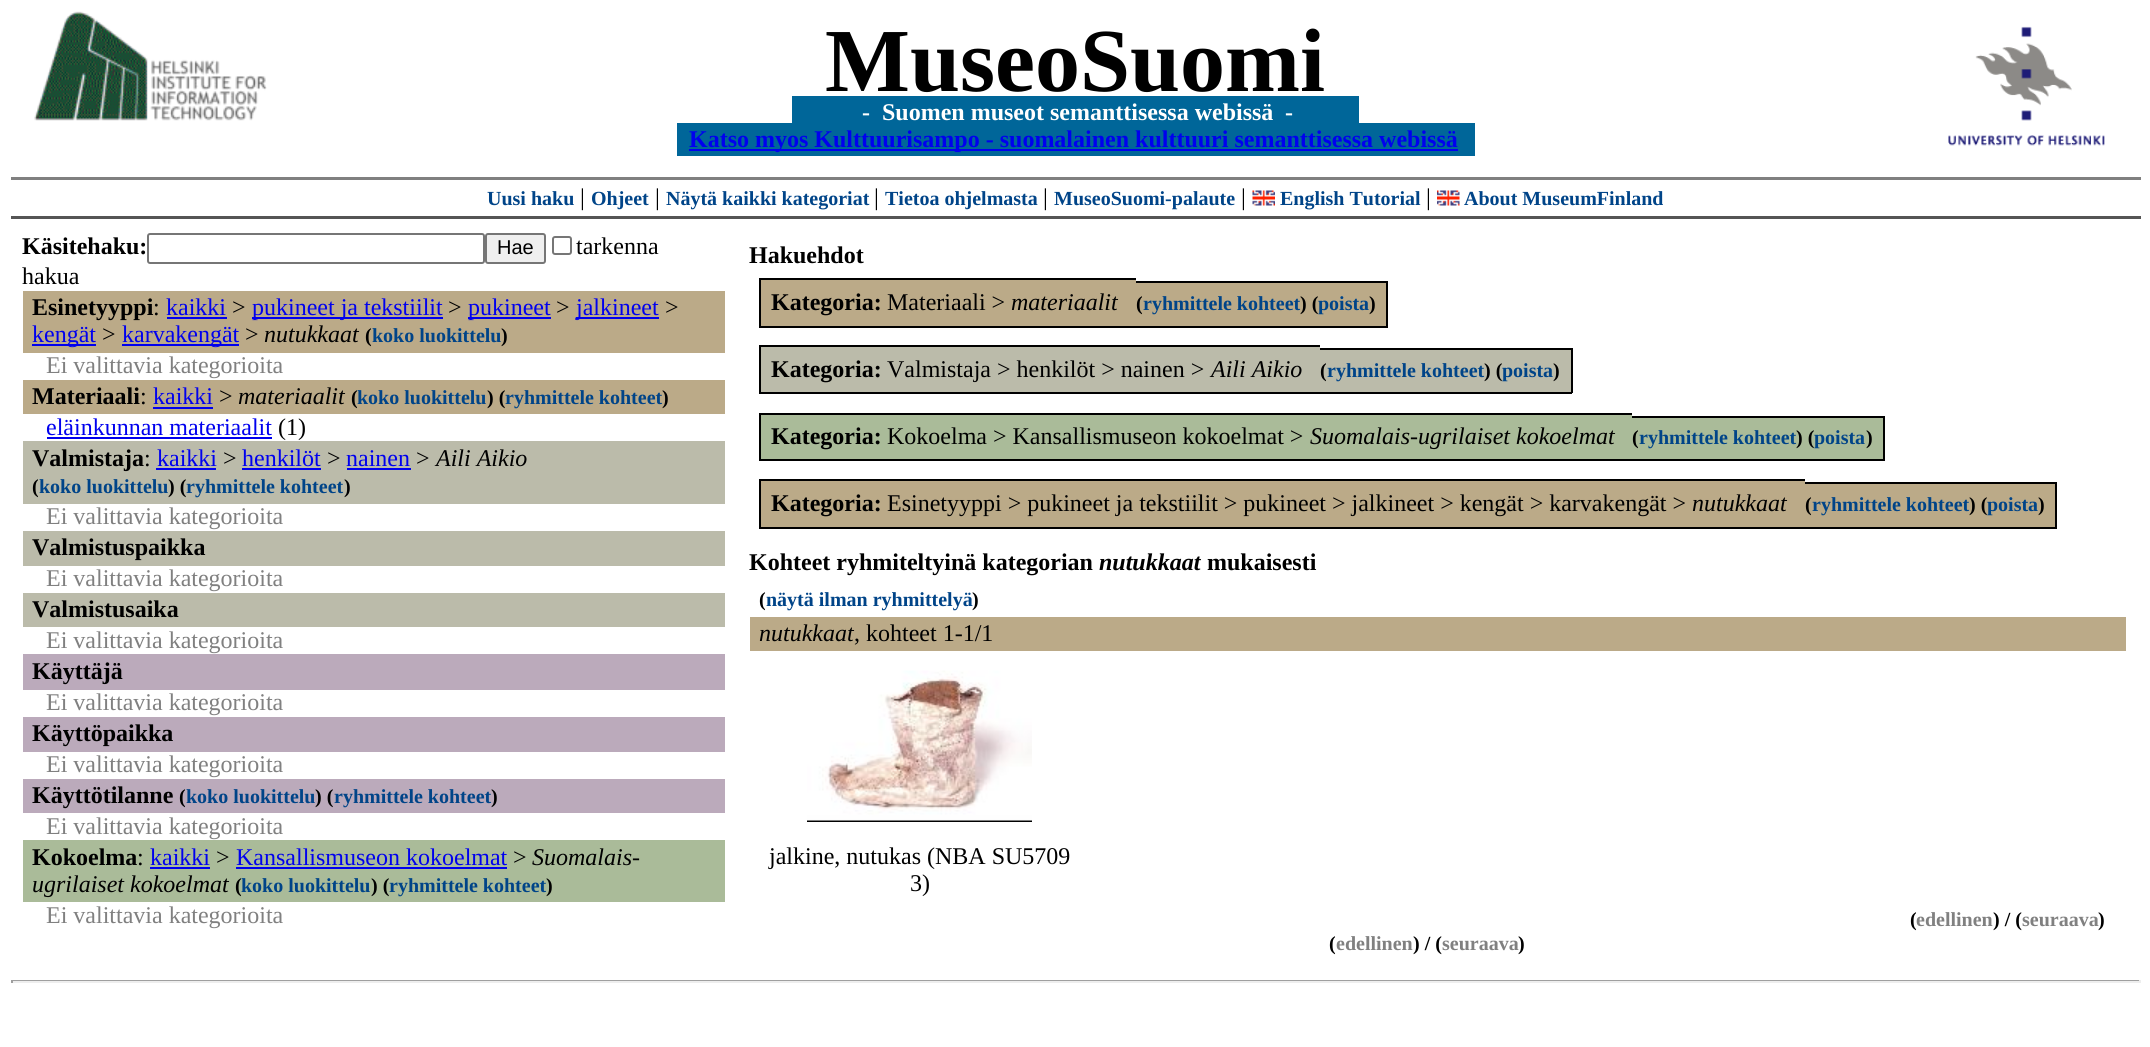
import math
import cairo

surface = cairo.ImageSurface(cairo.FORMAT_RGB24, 2150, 1047)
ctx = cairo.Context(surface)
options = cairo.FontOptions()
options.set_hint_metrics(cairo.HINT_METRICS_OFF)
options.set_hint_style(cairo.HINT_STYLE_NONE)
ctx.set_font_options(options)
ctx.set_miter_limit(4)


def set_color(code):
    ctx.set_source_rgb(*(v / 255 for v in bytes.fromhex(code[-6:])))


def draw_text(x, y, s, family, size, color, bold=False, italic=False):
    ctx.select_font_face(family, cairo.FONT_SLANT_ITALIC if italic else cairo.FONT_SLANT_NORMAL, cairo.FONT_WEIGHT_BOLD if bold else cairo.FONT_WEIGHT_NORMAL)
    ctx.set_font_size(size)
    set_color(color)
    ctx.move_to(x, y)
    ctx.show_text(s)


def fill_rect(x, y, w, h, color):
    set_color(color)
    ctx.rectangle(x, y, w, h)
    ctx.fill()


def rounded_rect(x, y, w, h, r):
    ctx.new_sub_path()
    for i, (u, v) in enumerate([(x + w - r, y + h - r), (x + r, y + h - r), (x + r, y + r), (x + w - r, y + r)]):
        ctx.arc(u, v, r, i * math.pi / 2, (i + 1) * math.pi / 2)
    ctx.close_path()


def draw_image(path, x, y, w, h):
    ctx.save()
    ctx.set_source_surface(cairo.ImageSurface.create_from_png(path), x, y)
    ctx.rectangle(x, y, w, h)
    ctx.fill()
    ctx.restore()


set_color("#ffffff")
ctx.paint()
draw_image("assets/img1.png", 34, 11, 233, 110)
draw_text(825, 91, "MuseoSuomi", "Liberation Serif", 90, "#000000", bold=True)
draw_image("assets/img2.png", 1948, 26, 157, 120)
fill_rect(792, 96, 567, 27, "#006699")
draw_text(862, 120, "-", "Liberation Serif", 24, "#ffffff", bold=True)
draw_text(882, 120, "Suomen museot semanttisessa webissä", "Liberation Serif", 24, "#ffffff", bold=True)
draw_text(1285, 120, "-", "Liberation Serif", 24, "#ffffff", bold=True)
fill_rect(677, 123, 798, 33, "#006699")
fill_rect(689, 149, 769, 2, "#0000ee")
draw_text(689, 147, "Katso myos Kulttuurisampo - suomalainen kulttuuri semanttisessa webissä", "Liberation Serif", 24, "#0000ee", bold=True)
fill_rect(11, 177, 2130, 3, "#808080")
fill_rect(11, 216, 2130, 3, "#555555")
draw_text(487, 205, "Uusi haku", "Liberation Serif", 20, "#004488", bold=True)
draw_text(580, 205, "|", "Liberation Serif", 24, "#000000")
draw_text(591, 205, "Ohjeet", "Liberation Serif", 20, "#004488", bold=True)
draw_text(655, 205, "|", "Liberation Serif", 24, "#000000")
draw_text(666, 205, "Näytä kaikki kategoriat", "Liberation Serif", 20, "#004488", bold=True)
draw_text(874, 205, "|", "Liberation Serif", 24, "#000000")
draw_text(885, 205, "Tietoa ohjelmasta", "Liberation Serif", 20, "#004488", bold=True)
draw_text(1043, 205, "|", "Liberation Serif", 24, "#000000")
draw_text(1054, 205, "MuseoSuomi-palaute", "Liberation Serif", 20, "#004488", bold=True)
draw_text(1241, 205, "|", "Liberation Serif", 24, "#000000")
draw_image("assets/img3.png", 1252, 190, 23, 16)
draw_text(1280, 205, "English Tutorial", "Liberation Serif", 20, "#004488", bold=True)
draw_text(1426, 205, "|", "Liberation Serif", 24, "#000000")
draw_image("assets/img4.png", 1437, 190, 23, 16)
draw_text(1464, 205, "About MuseumFinland", "Liberation Serif", 20, "#004488", bold=True)
draw_text(22, 254, "Käsitehaku:", "Liberation Serif", 24, "#000000", bold=True)
rounded_rect(148, 234, 336, 29, 2)
set_color("#767676")
ctx.stroke()
set_color("#efefef")
rounded_rect(486, 234, 59, 29, 2)
ctx.fill_preserve()
set_color("#767676")
ctx.stroke()
draw_text(497, 254, "Hae", "Liberation Sans", 20, "#000000")
rounded_rect(553, 237, 18, 17, 2)
set_color("#767676")
ctx.stroke()
draw_text(576, 254, "tarkenna", "Liberation Serif", 24, "#000000")
draw_text(22, 284, "hakua", "Liberation Serif", 24, "#000000")
fill_rect(23, 291, 702, 62, "#bbaa88")
draw_text(32, 315, "Esinetyyppi", "Liberation Serif", 24, "#000000", bold=True)
draw_text(153, 315, ":", "Liberation Serif", 24, "#000000")
draw_text(166, 315, "kaikki", "Liberation Serif", 24, "#0000ee")
fill_rect(167, 317, 60, 2, "#0000ee")
draw_text(232, 315, ">", "Liberation Serif", 24, "#000000")
fill_rect(252, 317, 191, 2, "#0000ee")
draw_text(252, 315, "pukineet ja tekstiilit", "Liberation Serif", 24, "#0000ee")
draw_text(448, 315, ">", "Liberation Serif", 24, "#000000")
fill_rect(468, 317, 83, 2, "#0000ee")
draw_text(468, 315, "pukineet", "Liberation Serif", 24, "#0000ee")
draw_text(556, 315, ">", "Liberation Serif", 24, "#000000")
fill_rect(576, 317, 83, 2, "#0000ee")
draw_text(576, 315, "jalkineet", "Liberation Serif", 24, "#0000ee")
draw_text(665, 315, ">", "Liberation Serif", 24, "#000000")
fill_rect(32, 344, 64, 2, "#0000ee")
draw_text(32, 342, "kengät", "Liberation Serif", 24, "#0000ee")
draw_text(102, 342, ">", "Liberation Serif", 24, "#000000")
fill_rect(122, 344, 117, 2, "#0000ee")
draw_text(122, 342, "karvakengät", "Liberation Serif", 24, "#0000ee")
draw_text(245, 342, ">", "Liberation Serif", 24, "#000000")
draw_text(264, 342, "nutukkaat", "Liberation Serif", 24, "#000000", italic=True)
draw_text(365, 342, "(", "Liberation Serif", 20, "#000000", bold=True)
draw_text(372, 342, "koko luokittelu", "Liberation Serif", 20, "#004488", bold=True)
draw_text(501, 342, ")", "Liberation Serif", 20, "#000000", bold=True)
draw_text(46, 373, "Ei valittavia kategorioita", "Liberation Serif", 24, "#808080")
fill_rect(23, 380, 702, 34, "#bbaa88")
draw_text(32, 404, "Materiaali", "Liberation Serif", 24, "#000000", bold=True)
draw_text(140, 404, ":", "Liberation Serif", 24, "#000000")
draw_text(153, 404, "kaikki", "Liberation Serif", 24, "#0000ee")
fill_rect(153, 407, 60, 2, "#0000ee")
draw_text(219, 404, ">", "Liberation Serif", 24, "#000000")
draw_text(238, 404, "materiaalit", "Liberation Serif", 24, "#000000", italic=True)
draw_text(351, 404, "(", "Liberation Serif", 20, "#000000", bold=True)
draw_text(357, 404, "koko luokittelu", "Liberation Serif", 20, "#004488", bold=True)
draw_text(487, 404, ") (", "Liberation Serif", 20, "#000000", bold=True)
draw_text(505, 404, "ryhmittele kohteet", "Liberation Serif", 20, "#004488", bold=True)
draw_text(662, 404, ")", "Liberation Serif", 20, "#000000", bold=True)
draw_text(46, 435, "eläinkunnan materiaalit", "Liberation Serif", 24, "#0000ee")
fill_rect(47, 437, 225, 2, "#0000ee")
draw_text(278, 435, "(1)", "Liberation Serif", 24, "#000000")
fill_rect(23, 441, 702, 63, "#bbbbaa")
draw_text(32, 466, "Valmistaja", "Liberation Serif", 24, "#000000", bold=True)
draw_text(144, 466, ":", "Liberation Serif", 24, "#000000")
draw_text(157, 466, "kaikki", "Liberation Serif", 24, "#0000ee")
fill_rect(156, 468, 60, 2, "#0000ee")
draw_text(223, 466, ">", "Liberation Serif", 24, "#000000")
draw_text(242, 466, "henkilöt", "Liberation Serif", 24, "#0000ee")
fill_rect(242, 468, 79, 2, "#0000ee")
draw_text(327, 466, ">", "Liberation Serif", 24, "#000000")
draw_text(346, 466, "nainen", "Liberation Serif", 24, "#0000ee")
fill_rect(347, 468, 64, 2, "#0000ee")
draw_text(416, 466, ">", "Liberation Serif", 24, "#000000")
draw_text(436, 466, "Aili Aikio", "Liberation Serif", 24, "#000000", italic=True)
draw_text(32, 493, "(", "Liberation Serif", 20, "#000000", bold=True)
draw_text(39, 493, "koko luokittelu", "Liberation Serif", 20, "#004488", bold=True)
draw_text(168, 493, ") (", "Liberation Serif", 20, "#000000", bold=True)
draw_text(186, 493, "ryhmittele kohteet", "Liberation Serif", 20, "#004488", bold=True)
draw_text(344, 493, ")", "Liberation Serif", 20, "#000000", bold=True)
draw_text(46, 524, "Ei valittavia kategorioita", "Liberation Serif", 24, "#808080")
fill_rect(23, 531, 702, 35, "#bbbbaa")
draw_text(32, 555, "Valmistuspaikka", "Liberation Serif", 24, "#000000", bold=True)
draw_text(46, 586, "Ei valittavia kategorioita", "Liberation Serif", 24, "#808080")
fill_rect(23, 593, 702, 34, "#bbbbaa")
draw_text(32, 617, "Valmistusaika", "Liberation Serif", 24, "#000000", bold=True)
draw_text(46, 648, "Ei valittavia kategorioita", "Liberation Serif", 24, "#808080")
fill_rect(23, 654, 702, 36, "#bbaabb")
draw_text(32, 679, "Käyttäjä", "Liberation Serif", 24, "#000000", bold=True)
draw_text(46, 710, "Ei valittavia kategorioita", "Liberation Serif", 24, "#808080")
fill_rect(23, 717, 702, 35, "#bbaabb")
draw_text(32, 741, "Käyttöpaikka", "Liberation Serif", 24, "#000000", bold=True)
draw_text(46, 772, "Ei valittavia kategorioita", "Liberation Serif", 24, "#808080")
fill_rect(23, 779, 702, 34, "#bbaabb")
draw_text(32, 803, "Käyttötilanne", "Liberation Serif", 24, "#000000", bold=True)
draw_text(179, 803, "(", "Liberation Serif", 20, "#000000", bold=True)
draw_text(186, 803, "koko luokittelu", "Liberation Serif", 20, "#004488", bold=True)
draw_text(315, 803, ") (", "Liberation Serif", 20, "#000000", bold=True)
draw_text(334, 803, "ryhmittele kohteet", "Liberation Serif", 20, "#004488", bold=True)
draw_text(491, 803, ")", "Liberation Serif", 20, "#000000", bold=True)
draw_text(46, 834, "Ei valittavia kategorioita", "Liberation Serif", 24, "#808080")
fill_rect(23, 840, 702, 62, "#aabb99")
draw_text(32, 865, "Kokoelma", "Liberation Serif", 24, "#000000", bold=True)
draw_text(137, 865, ":", "Liberation Serif", 24, "#000000")
draw_text(150, 865, "kaikki", "Liberation Serif", 24, "#0000ee")
fill_rect(150, 867, 60, 2, "#0000ee")
draw_text(216, 865, ">", "Liberation Serif", 24, "#000000")
draw_text(236, 865, "Kansallismuseon kokoelmat", "Liberation Serif", 24, "#0000ee")
fill_rect(236, 867, 271, 2, "#0000ee")
draw_text(513, 865, ">", "Liberation Serif", 24, "#000000")
draw_text(532, 865, "Suomalais-", "Liberation Serif", 24, "#000000", italic=True)
draw_text(32, 892, "ugrilaiset kokoelmat", "Liberation Serif", 24, "#000000", italic=True)
draw_text(235, 892, "(", "Liberation Serif", 20, "#000000", bold=True)
draw_text(241, 892, "koko luokittelu", "Liberation Serif", 20, "#004488", bold=True)
draw_text(371, 892, ") (", "Liberation Serif", 20, "#000000", bold=True)
draw_text(389, 892, "ryhmittele kohteet", "Liberation Serif", 20, "#004488", bold=True)
draw_text(546, 892, ")", "Liberation Serif", 20, "#000000", bold=True)
draw_text(46, 923, "Ei valittavia kategorioita", "Liberation Serif", 24, "#808080")
draw_text(749, 263, "Hakuehdot", "Liberation Serif", 24, "#000000", bold=True)
fill_rect(761, 280, 375, 46, "#bbaa88")
draw_text(771, 310, "Kategoria:", "Liberation Serif", 24, "#000000", bold=True)
fill_rect(759, 278, 377, 2, "#000000")
fill_rect(759, 326, 377, 2, "#000000")
fill_rect(759, 278, 2, 49, "#000000")
draw_text(887, 310, "Materiaali >", "Liberation Serif", 24, "#000000")
draw_text(1011, 310, "materiaalit", "Liberation Serif", 24, "#000000", italic=True)
fill_rect(1136, 281, 7, 46, "#bbaa88")
draw_text(1136, 310, "(", "Liberation Serif", 20, "#000000", bold=True)
fill_rect(1136, 281, 175, 2, "#000000")
fill_rect(1136, 326, 175, 2, "#000000")
fill_rect(1143, 283, 168, 43, "#bbaa88")
draw_text(1143, 310, "ryhmittele kohteet", "Liberation Serif", 20, "#004488", bold=True)
fill_rect(1311, 281, 8, 46, "#bbaa88")
draw_text(1300, 310, ") (", "Liberation Serif", 20, "#000000", bold=True)
fill_rect(1311, 281, 77, 2, "#000000")
fill_rect(1311, 326, 59, 2, "#000000")
fill_rect(1319, 283, 67, 43, "#bbaa88")
draw_text(1318, 310, "poista", "Liberation Serif", 20, "#004488", bold=True)
fill_rect(1386, 281, 2, 46, "#000000")
fill_rect(1370, 326, 18, 2, "#000000")
draw_text(1369, 310, ")", "Liberation Serif", 20, "#000000", bold=True)
fill_rect(761, 347, 559, 45, "#bbbbaa")
draw_text(771, 377, "Kategoria:", "Liberation Serif", 24, "#000000", bold=True)
fill_rect(759, 345, 561, 2, "#000000")
fill_rect(759, 392, 561, 2, "#000000")
fill_rect(759, 345, 2, 48, "#000000")
draw_text(887, 377, "Valmistaja > henkilöt > nainen >", "Liberation Serif", 24, "#000000")
draw_text(1211, 377, "Aili Aikio", "Liberation Serif", 24, "#000000", italic=True)
fill_rect(1320, 348, 6, 45, "#bbbbaa")
draw_text(1320, 377, "(", "Liberation Serif", 20, "#000000", bold=True)
fill_rect(1320, 348, 176, 2, "#000000")
fill_rect(1320, 392, 176, 2, "#000000")
fill_rect(1326, 350, 170, 42, "#bbbbaa")
draw_text(1327, 377, "ryhmittele kohteet", "Liberation Serif", 20, "#004488", bold=True)
fill_rect(1496, 348, 6, 45, "#bbbbaa")
draw_text(1484, 377, ") (", "Liberation Serif", 20, "#000000", bold=True)
fill_rect(1496, 348, 76, 2, "#000000")
fill_rect(1496, 392, 57, 2, "#000000")
fill_rect(1502, 350, 69, 42, "#bbbbaa")
draw_text(1502, 377, "poista", "Liberation Serif", 20, "#004488", bold=True)
fill_rect(1571, 348, 2, 45, "#000000")
fill_rect(1553, 392, 19, 2, "#000000")
draw_text(1553, 377, ")", "Liberation Serif", 20, "#000000", bold=True)
fill_rect(761, 415, 871, 44, "#aabb99")
draw_text(771, 444, "Kategoria:", "Liberation Serif", 24, "#000000", bold=True)
fill_rect(759, 413, 873, 2, "#000000")
fill_rect(759, 459, 873, 2, "#000000")
fill_rect(759, 413, 2, 48, "#000000")
draw_text(887, 444, "Kokoelma > Kansallismuseon kokoelmat >", "Liberation Serif", 24, "#000000")
draw_text(1310, 444, "Suomalais-ugrilaiset kokoelmat", "Liberation Serif", 24, "#000000", italic=True)
fill_rect(1632, 416, 8, 45, "#aabb99")
draw_text(1632, 444, "(", "Liberation Serif", 20, "#000000", bold=True)
fill_rect(1632, 416, 176, 2, "#000000")
fill_rect(1632, 459, 176, 2, "#000000")
fill_rect(1640, 418, 168, 41, "#aabb99")
draw_text(1639, 444, "ryhmittele kohteet", "Liberation Serif", 20, "#004488", bold=True)
fill_rect(1808, 416, 7, 45, "#aabb99")
draw_text(1796, 444, ") (", "Liberation Serif", 20, "#000000", bold=True)
fill_rect(1808, 416, 76, 2, "#000000")
fill_rect(1808, 459, 58, 2, "#000000")
fill_rect(1815, 418, 68, 41, "#aabb99")
draw_text(1814, 444, "poista", "Liberation Serif", 20, "#004488", bold=True)
fill_rect(1883, 416, 2, 45, "#000000")
fill_rect(1866, 459, 18, 2, "#000000")
draw_text(1866, 444, ")", "Liberation Serif", 20, "#000000", bold=True)
fill_rect(761, 481, 1044, 46, "#bbaa88")
draw_text(771, 511, "Kategoria:", "Liberation Serif", 24, "#000000", bold=True)
fill_rect(759, 479, 1046, 2, "#000000")
fill_rect(759, 527, 1046, 2, "#000000")
fill_rect(759, 479, 2, 49, "#000000")
draw_text(887, 511, "Esinetyyppi > pukineet ja tekstiilit > pukineet > jalkineet > kengät > karvakengät >", "Liberation Serif", 24, "#000000")
draw_text(1692, 511, "nutukkaat", "Liberation Serif", 24, "#000000", italic=True)
fill_rect(1805, 482, 7, 46, "#bbaa88")
draw_text(1805, 511, "(", "Liberation Serif", 20, "#000000", bold=True)
fill_rect(1805, 482, 175, 2, "#000000")
fill_rect(1805, 527, 175, 2, "#000000")
fill_rect(1812, 484, 168, 43, "#bbaa88")
draw_text(1812, 511, "ryhmittele kohteet", "Liberation Serif", 20, "#004488", bold=True)
fill_rect(1980, 482, 8, 46, "#bbaa88")
draw_text(1969, 511, ") (", "Liberation Serif", 20, "#000000", bold=True)
fill_rect(1980, 482, 77, 2, "#000000")
fill_rect(1980, 527, 59, 2, "#000000")
fill_rect(1988, 484, 67, 43, "#bbaa88")
draw_text(1987, 511, "poista", "Liberation Serif", 20, "#004488", bold=True)
draw_text(2038, 511, ")", "Liberation Serif", 20, "#000000", bold=True)
fill_rect(2055, 482, 2, 46, "#000000")
fill_rect(2039, 527, 18, 2, "#000000")
draw_text(749, 570, "Kohteet ryhmiteltyinä kategorian", "Liberation Serif", 24, "#000000", bold=True)
draw_text(1099, 570, "nutukkaat", "Liberation Serif", 24, "#000000", bold=True, italic=True)
draw_text(1207, 570, "mukaisesti", "Liberation Serif", 24, "#000000", bold=True)
draw_text(759, 606, "(", "Liberation Serif", 20, "#000000", bold=True)
draw_text(766, 606, "näytä ilman ryhmittelyä", "Liberation Serif", 20, "#004488", bold=True)
draw_text(972, 606, ")", "Liberation Serif", 20, "#000000", bold=True)
fill_rect(750, 617, 1376, 34, "#bbaa88")
draw_text(759, 641, "nutukkaat", "Liberation Serif", 24, "#000000", italic=True)
draw_text(854, 641, ", kohteet 1-1/1", "Liberation Serif", 24, "#000000")
draw_image("assets/img5.png", 807, 670, 225, 152)
draw_text(769, 864, "jalkine, nutukas (NBA SU5709", "Liberation Serif", 24, "#000000")
draw_text(910, 891, "3)", "Liberation Serif", 24, "#000000")
draw_text(1910, 926, "(", "Liberation Serif", 20, "#000000", bold=True)
draw_text(1916, 926, "edellinen", "Liberation Serif", 20, "#808080", bold=True)
draw_text(1993, 926, ") / (", "Liberation Serif", 20, "#000000", bold=True)
draw_text(2022, 926, "seuraava", "Liberation Serif", 20, "#808080", bold=True)
draw_text(2098, 926, ")", "Liberation Serif", 20, "#000000", bold=True)
draw_text(1329, 950, "(", "Liberation Serif", 20, "#000000", bold=True)
draw_text(1336, 950, "edellinen", "Liberation Serif", 20, "#808080", bold=True)
draw_text(1413, 950, ") / (", "Liberation Serif", 20, "#000000", bold=True)
draw_text(1442, 950, "seuraava", "Liberation Serif", 20, "#808080", bold=True)
draw_text(1518, 950, ")", "Liberation Serif", 20, "#000000", bold=True)
fill_rect(11, 980, 2130, 1, "#9f9f9f")
fill_rect(2139, 980, 2, 3, "#eeeeee")
fill_rect(11, 981, 2130, 2, "#eeeeee")
fill_rect(11, 980, 2, 3, "#9f9f9f")
surface.write_to_png("output.png")
